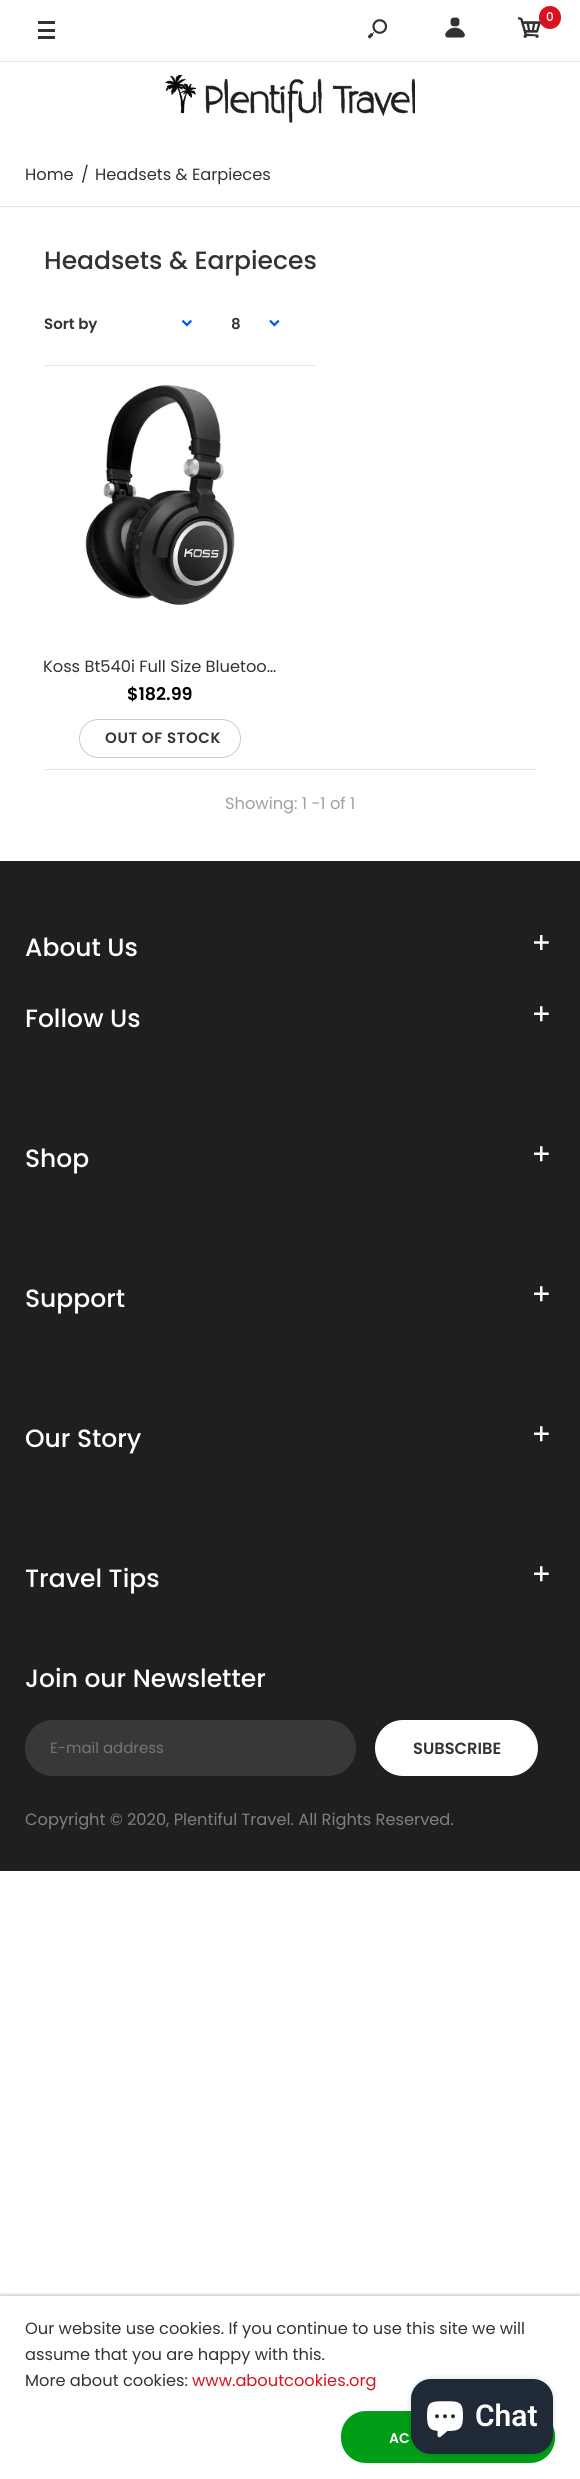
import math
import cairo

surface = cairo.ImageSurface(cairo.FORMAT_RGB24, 580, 2479)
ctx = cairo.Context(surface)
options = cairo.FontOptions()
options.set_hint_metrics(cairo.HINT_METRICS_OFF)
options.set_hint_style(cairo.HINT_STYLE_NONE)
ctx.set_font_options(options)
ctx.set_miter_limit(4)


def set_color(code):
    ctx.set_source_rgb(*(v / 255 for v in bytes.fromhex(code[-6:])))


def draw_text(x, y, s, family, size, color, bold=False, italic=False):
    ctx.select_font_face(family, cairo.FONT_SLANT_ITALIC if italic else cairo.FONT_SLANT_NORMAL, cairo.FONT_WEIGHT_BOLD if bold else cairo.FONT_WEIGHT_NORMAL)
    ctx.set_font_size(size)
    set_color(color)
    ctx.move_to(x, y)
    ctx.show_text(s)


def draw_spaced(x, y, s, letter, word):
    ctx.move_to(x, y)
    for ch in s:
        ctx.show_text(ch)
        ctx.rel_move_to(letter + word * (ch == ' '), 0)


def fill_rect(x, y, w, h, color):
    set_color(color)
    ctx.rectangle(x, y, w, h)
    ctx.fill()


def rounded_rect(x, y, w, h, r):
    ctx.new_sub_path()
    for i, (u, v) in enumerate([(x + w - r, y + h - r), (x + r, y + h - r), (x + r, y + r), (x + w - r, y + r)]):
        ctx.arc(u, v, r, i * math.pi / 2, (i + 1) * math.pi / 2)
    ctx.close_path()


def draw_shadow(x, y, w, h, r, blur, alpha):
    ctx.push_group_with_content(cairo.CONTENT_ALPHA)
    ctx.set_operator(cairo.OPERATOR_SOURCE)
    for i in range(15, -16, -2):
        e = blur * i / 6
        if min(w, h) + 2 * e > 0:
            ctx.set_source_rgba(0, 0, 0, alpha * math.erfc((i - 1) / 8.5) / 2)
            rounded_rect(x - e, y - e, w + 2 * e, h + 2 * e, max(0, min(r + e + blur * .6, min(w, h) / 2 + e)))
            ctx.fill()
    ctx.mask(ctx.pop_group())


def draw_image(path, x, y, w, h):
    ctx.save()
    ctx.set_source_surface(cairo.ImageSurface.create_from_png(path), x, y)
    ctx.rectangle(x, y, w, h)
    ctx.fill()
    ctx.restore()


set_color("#ffffff")
ctx.paint()
fill_rect(0, 61, 580, 1, "#e7e7e7")
draw_image("assets/img1.png", 518, 17, 23, 21)
set_color("#d9121f")
rounded_rect(539, 6, 22, 23, 11)
ctx.fill()
draw_text(546, 21, "0", "Poppins Medium", 12, "#ffffff")
fill_rect(38, 29, 17, 3, "#333333")
fill_rect(38, 21, 17, 3, "#333333")
fill_rect(38, 36, 17, 3, "#333333")
draw_image("assets/img2.png", 368, 19, 20, 20)
draw_image("assets/img3.png", 445, 17, 20, 21)
draw_image("assets/img4.png", 165, 75, 250, 48)
fill_rect(0, 206, 580, 1, "#e5e5e5")
draw_text(25, 180, "Home", "Poppins", 16.25, "#333333")
draw_text(81, 180, "/", "Poppins", 16.25, "#333333")
draw_text(95, 180, "Headsets & Earpieces", "Poppins", 16.25, "#333333")
draw_text(44, 269, "Headsets & Earpieces", "Poppins Medium", 25, "#333333")
draw_text(44, 329, "Sort by", "Poppins SemiBold", 15, "#333333")
draw_image("assets/img5.png", 181, 320, 11, 7)
draw_text(231, 329, "8", "Poppins SemiBold", 15, "#333333")
draw_image("assets/img6.png", 269, 320, 11, 7)
fill_rect(44, 365, 271, 1, "#e5e5e5")
draw_image("assets/img7.png", 85, 384, 150, 221)
ctx.save()
ctx.rectangle(44, 633, 234, 47)
ctx.clip()
draw_text(43, 672, "Koss Bt540i Full Size Bluetoo…", "Poppins", 16.25, "#333333")
ctx.restore()
draw_text(127, 700, "$182.99", "Poppins SemiBold", 17.5, "#000000")
rounded_rect(79.5, 719.5, 161, 38, 19)
set_color("#cccccc")
ctx.set_line_width(1)
ctx.stroke()
ctx.set_font_size(15)
set_color("#333333")
draw_spaced(105, 743, "OUT OF STOCK", 0.6, 0)
fill_rect(44, 769, 492, 1, "#e5e5e5")
draw_text(225, 809, "Showing: 1 -1 of 1", "Poppins", 16.25, "#a0a0a0")
fill_rect(0, 861, 580, 1010, "#1f1f1f")
draw_text(25, 956, "About Us", "Poppins Medium", 25, "#ffffff")
draw_image("assets/img8.png", 534, 935, 15, 15)
draw_text(25, 1027, "Follow Us", "Poppins Medium", 25, "#ffffff")
draw_image("assets/img9.png", 534, 1006, 15, 16)
draw_text(25, 1167, "Shop", "Poppins Medium", 25, "#ffffff")
draw_image("assets/img9.png", 534, 1146, 15, 16)
draw_text(25, 1307, "Support", "Poppins Medium", 25, "#ffffff")
draw_image("assets/img9.png", 534, 1286, 15, 16)
draw_text(25, 1447, "Our Story", "Poppins Medium", 25, "#ffffff")
draw_image("assets/img9.png", 534, 1426, 15, 16)
draw_text(25, 1587, "Travel Tips", "Poppins Medium", 25, "#ffffff")
draw_image("assets/img9.png", 534, 1566, 15, 16)
draw_text(25, 1687, "Join our Newsletter", "Poppins Medium", 25, "#ffffff")
set_color("#383838")
rounded_rect(25, 1720, 331, 56, 28)
ctx.fill()
draw_text(50, 1753, "E-mail address", "Poppins", 15, "#757575")
set_color("#ffffff")
rounded_rect(375, 1720, 163, 56, 28)
ctx.fill()
draw_text(413, 1754, "SUBSCRIBE", "Poppins SemiBold", 16.25, "#333333")
draw_text(25, 1825, "Copyright © 2020, Plentiful Travel. All Rights Reserved.", "Poppins", 16.25, "#808080")
set_color("#323232")
draw_shadow(0, 2294, 580, 184, 0, 1, 0.2)
fill_rect(0, 2296, 580, 183, "#ffffff")
draw_text(25, 2334, "Our website use cookies. If you continue to use this site we will", "Poppins", 16.25, "#333333")
draw_text(25, 2360, "assume that you are happy with this.", "Poppins", 16.25, "#333333")
draw_text(25, 2386, "More about cookies:", "Poppins", 16.25, "#333333")
draw_text(192, 2386, "www.aboutcookies.org", "Poppins", 16.25, "#d9121f")
set_color("#009d16")
rounded_rect(341, 2411, 214, 52, 25)
ctx.fill()
draw_text(389, 2443, "AC", "Poppins SemiBold", 14, "#ffffff")
set_color("#000000")
draw_shadow(411, 2379, 142, 75, 20, 3, 0.15)
set_color("#202a36")
rounded_rect(411, 2379, 142, 75, 20)
ctx.fill()
draw_image("assets/img10.png", 427, 2401, 36, 37)
draw_text(475, 2426, "Chat", "Roboto SemiBold", 30, "#ffffff")
surface.write_to_png("output.png")
